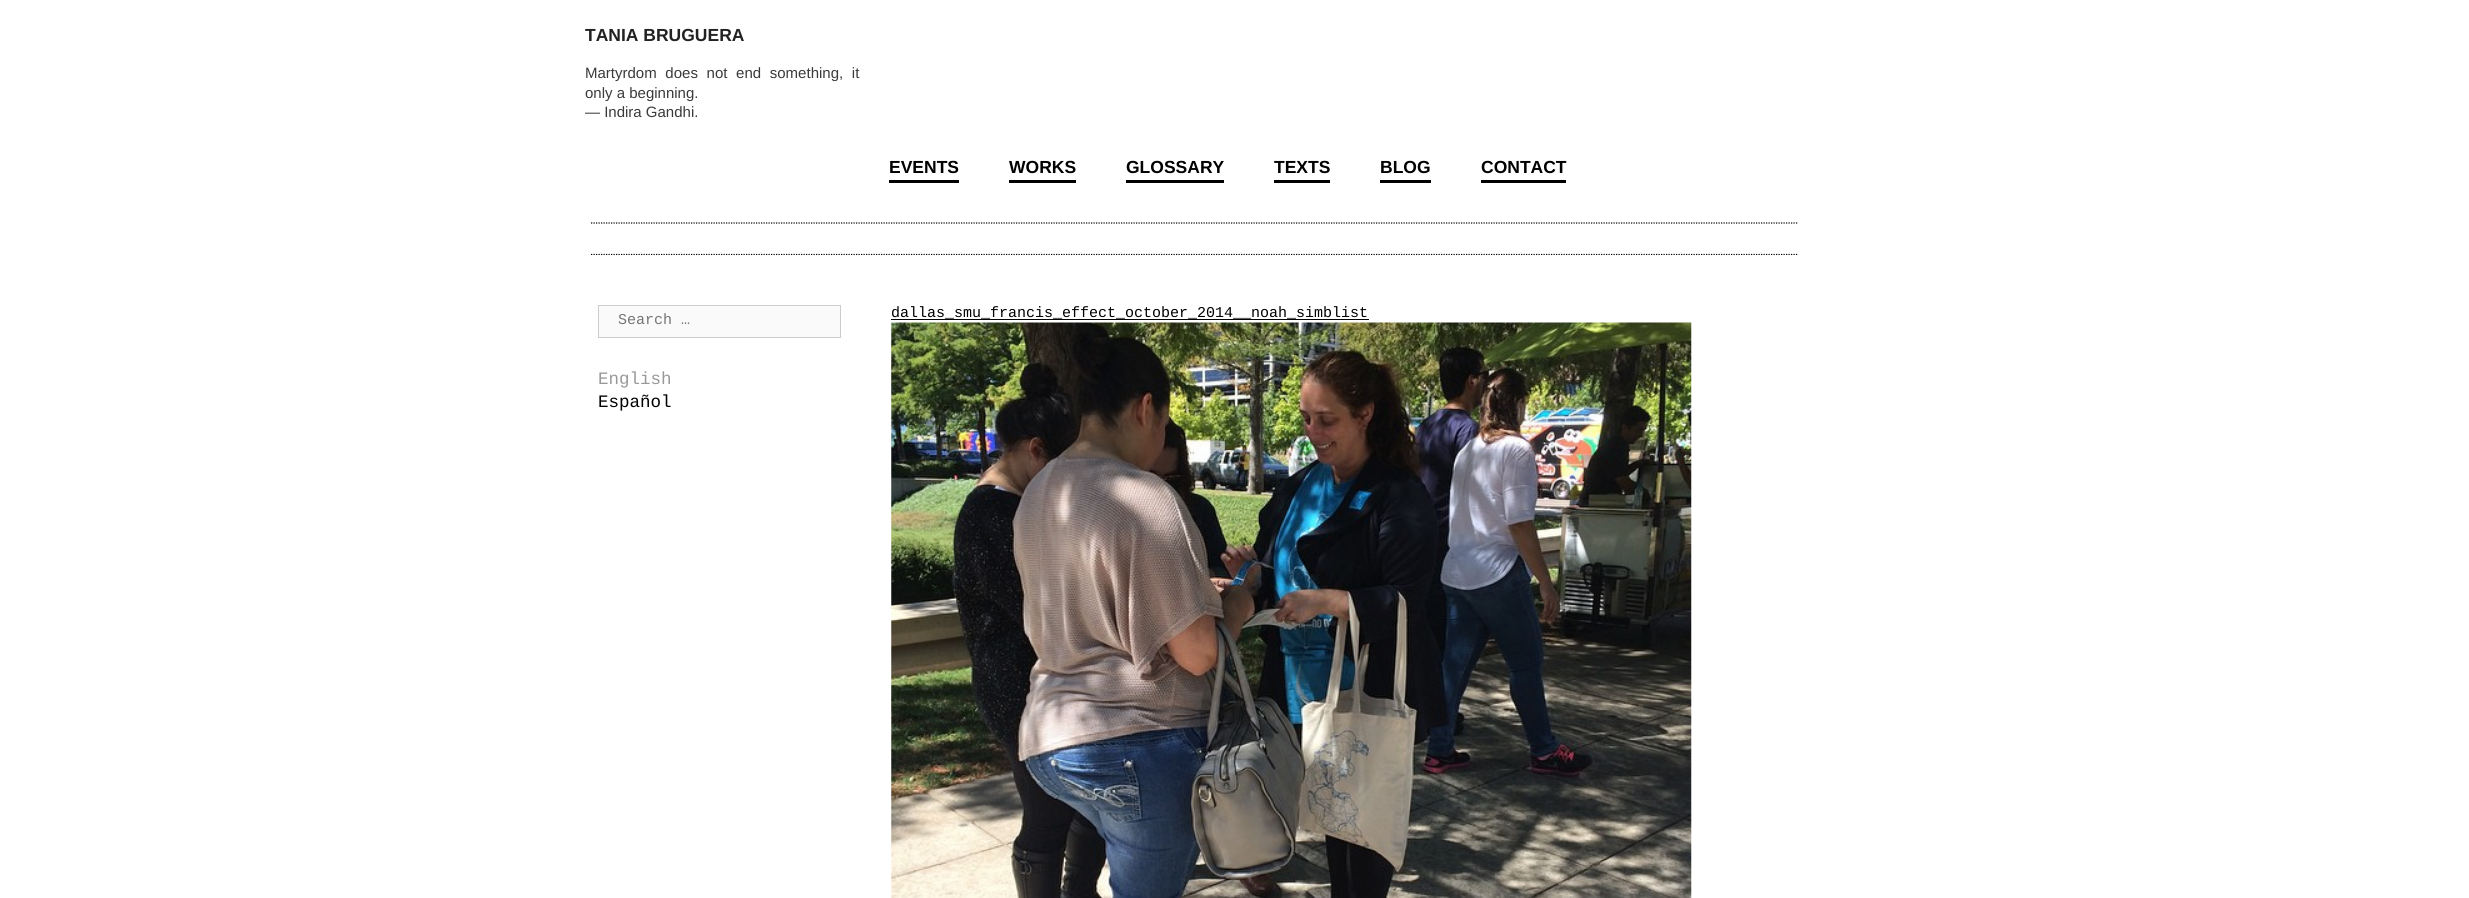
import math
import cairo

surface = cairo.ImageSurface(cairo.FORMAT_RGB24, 2469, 898)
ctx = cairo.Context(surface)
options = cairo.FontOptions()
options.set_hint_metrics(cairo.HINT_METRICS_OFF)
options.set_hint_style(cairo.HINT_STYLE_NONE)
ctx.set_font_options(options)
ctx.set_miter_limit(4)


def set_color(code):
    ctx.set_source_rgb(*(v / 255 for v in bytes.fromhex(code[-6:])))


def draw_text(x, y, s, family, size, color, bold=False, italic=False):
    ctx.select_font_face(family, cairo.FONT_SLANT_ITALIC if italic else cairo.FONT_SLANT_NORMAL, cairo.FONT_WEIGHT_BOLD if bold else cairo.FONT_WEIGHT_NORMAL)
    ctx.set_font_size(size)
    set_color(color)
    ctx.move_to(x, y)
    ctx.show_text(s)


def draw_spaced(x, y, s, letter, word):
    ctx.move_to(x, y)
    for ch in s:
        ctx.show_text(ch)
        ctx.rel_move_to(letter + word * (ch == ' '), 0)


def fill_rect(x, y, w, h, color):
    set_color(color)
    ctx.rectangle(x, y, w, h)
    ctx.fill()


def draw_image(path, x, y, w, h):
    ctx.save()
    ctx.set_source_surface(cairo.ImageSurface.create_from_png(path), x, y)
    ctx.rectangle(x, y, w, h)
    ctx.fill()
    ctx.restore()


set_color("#ffffff")
ctx.paint()
draw_text(585, 41, "TANIA BRUGUERA", "Liberation Sans", 17.5, "#222222", bold=True)
ctx.select_font_face("Liberation Sans")
ctx.set_font_size(15)
set_color("#3a3a3a")
draw_spaced(585, 78, "Martyrdom does not end something, it", 0, 4.5)
draw_text(585, 98, "only a beginning.", "Liberation Sans", 15, "#3a3a3a")
draw_text(585, 117, "— Indira Gandhi.", "Liberation Sans", 15, "#3a3a3a")
fill_rect(889, 180, 70, 3, "#000000")
draw_text(889, 173, "EVENTS", "Liberation Sans", 17.5, "#000000", bold=True)
fill_rect(1009, 180, 67, 3, "#000000")
draw_text(1009, 173, "WORKS", "Liberation Sans", 17.5, "#000000", bold=True)
fill_rect(1126, 180, 98, 3, "#000000")
draw_text(1126, 173, "GLOSSARY", "Liberation Sans", 17.5, "#000000", bold=True)
fill_rect(1274, 180, 56, 3, "#000000")
draw_text(1274, 173, "TEXTS", "Liberation Sans", 17.5, "#000000", bold=True)
fill_rect(1380, 180, 51, 3, "#000000")
draw_text(1380, 173, "BLOG", "Liberation Sans", 17.5, "#000000", bold=True)
fill_rect(1481, 180, 85, 3, "#000000")
draw_text(1481, 173, "CONTACT", "Liberation Sans", 17.5, "#000000", bold=True)
ctx.new_path()
ctx.move_to(591, 223)
ctx.line_to(1797.5, 223)
ctx.set_line_width(1.2)
ctx.set_dash([1.25, 1.25])
ctx.stroke()
ctx.new_path()
ctx.move_to(591, 254.5)
ctx.line_to(1797.5, 254.5)
ctx.stroke()
fill_rect(591, 255, 1207, 1, "#ffffff")
set_color("#fafafa")
ctx.rectangle(598.5, 305.5, 242, 32)
ctx.fill_preserve()
set_color("#cccccc")
ctx.set_line_width(1)
ctx.set_dash([])
ctx.stroke()
draw_text(618, 324, "Search …", "Liberation Mono", 15, "#757575")
draw_text(598, 384, "English", "Liberation Mono", 17.5, "#999999")
draw_text(598, 407, "Español", "Liberation Mono", 17.5, "#000000")
draw_text(891, 317, "dallas_smu_francis_effect_october_2014__noah_simblist", "Liberation Mono", 15, "#000000")
fill_rect(891, 319, 478, 1, "#000000")
draw_image("assets/img1.png", 891, 322, 801, 576)
surface.write_to_png("output.png")
